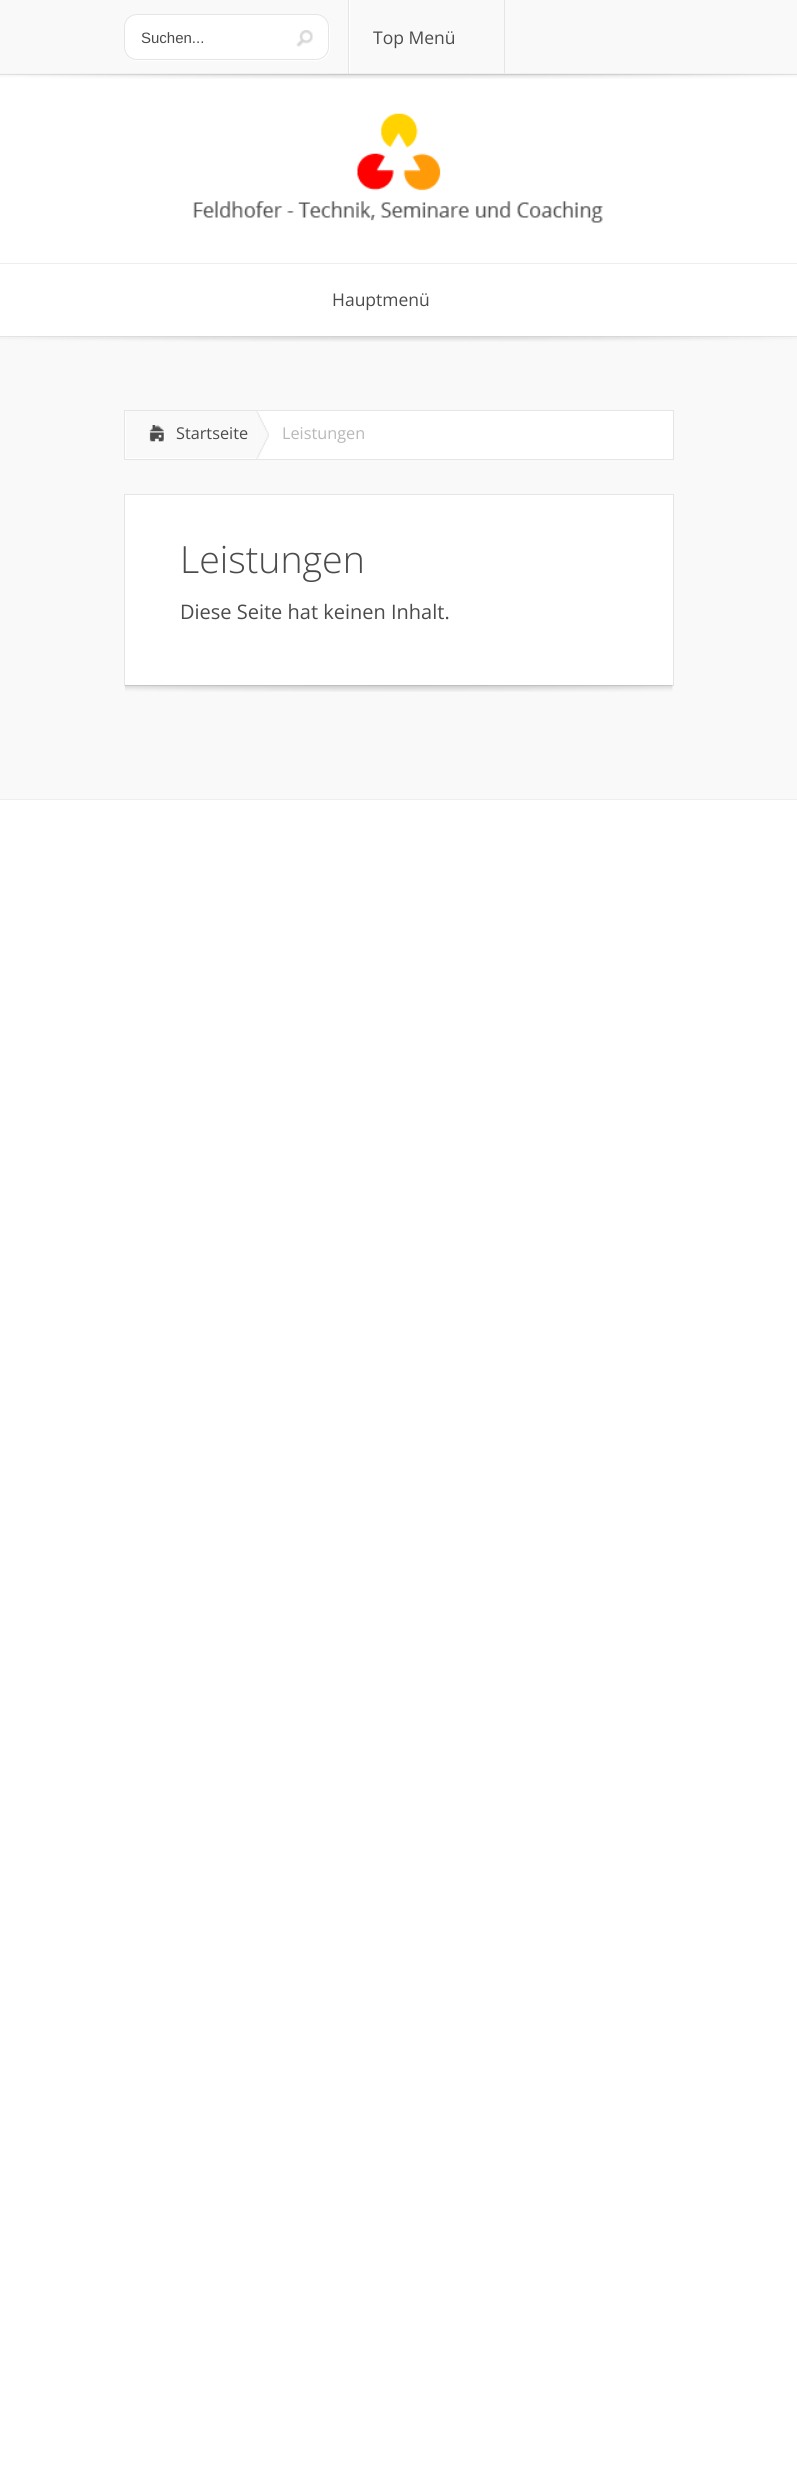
import math
import cairo

surface = cairo.ImageSurface(cairo.FORMAT_RGB24, 797, 2478)
ctx = cairo.Context(surface)
options = cairo.FontOptions()
options.set_hint_metrics(cairo.HINT_METRICS_OFF)
options.set_hint_style(cairo.HINT_STYLE_NONE)
ctx.set_font_options(options)
ctx.set_miter_limit(4)


def set_color(code):
    ctx.set_source_rgb(*(v / 255 for v in bytes.fromhex(code[-6:])))


def draw_text(x, y, s, family, size, color, bold=False, italic=False):
    ctx.select_font_face(family, cairo.FONT_SLANT_ITALIC if italic else cairo.FONT_SLANT_NORMAL, cairo.FONT_WEIGHT_BOLD if bold else cairo.FONT_WEIGHT_NORMAL)
    ctx.set_font_size(size)
    set_color(color)
    ctx.move_to(x, y)
    ctx.show_text(s)


def fill_rect(x, y, w, h, color):
    set_color(color)
    ctx.rectangle(x, y, w, h)
    ctx.fill()


def rounded_rect(x, y, w, h, r):
    ctx.new_sub_path()
    for i, (u, v) in enumerate([(x + w - r, y + h - r), (x + r, y + h - r), (x + r, y + r), (x + w - r, y + r)]):
        ctx.arc(u, v, r, i * math.pi / 2, (i + 1) * math.pi / 2)
    ctx.close_path()


def draw_image(path, x, y, w, h):
    ctx.save()
    ctx.set_source_surface(cairo.ImageSurface.create_from_png(path), x, y)
    ctx.rectangle(x, y, w, h)
    ctx.fill()
    ctx.restore()


set_color("#ffffff")
ctx.paint()
fill_rect(0, 0, 797, 74, "#f9f9f9")
fill_rect(0, 74, 797, 1, "#eeeeee")
draw_image("assets/img2.png", 0, 73, 797, 6)
fill_rect(348, 0, 1, 74, "#e5e5e5")
set_color("#ffffff")
ctx.new_path()
ctx.move_to(130, 59)
ctx.curve_to(133, 60, 135, 61, 138, 61)
ctx.line_to(317, 61)
ctx.curve_to(324, 61, 330, 55, 330, 48)
ctx.line_to(330, 28)
ctx.curve_to(330, 25, 329, 22, 327, 19)
ctx.curve_to(328, 21, 329, 24, 329, 26)
ctx.line_to(329, 48)
ctx.curve_to(329, 54, 323, 60, 316, 60)
ctx.line_to(136, 60)
ctx.curve_to(134, 60, 132, 59, 130, 59)
ctx.close_path()
ctx.fill()
rounded_rect(124.5, 14.5, 204, 45, 12.5)
ctx.fill_preserve()
set_color("#e5e5e5")
ctx.set_line_width(1)
ctx.stroke()
draw_text(141, 43, "Suchen...", "Liberation Sans", 15, "#4b4b4b")
draw_image("assets/img1.png", 296, 30, 17, 17)
fill_rect(504, 0, 1, 73, "#e5e5e5")
fill_rect(349, 0, 1, 73, "#ffffff")
draw_text(373, 44, "Top Menü", "Open Sans", 17.5, "#4b4b4b")
draw_image("assets/img3.png", 193, 113, 410, 110)
fill_rect(0, 263, 797, 1, "#eeeeee")
fill_rect(0, 336, 797, 1, "#eeeeee")
draw_text(332, 306, "Hauptmenü", "Open Sans", 17.5, "#4b4b4b")
fill_rect(0, 338, 797, 461, "#f9f9f9")
draw_image("assets/img4.png", 0, 336, 797, 6)
fill_rect(0, 799, 797, 1, "#eeeeee")
set_color("#ffffff")
ctx.rectangle(124.5, 410.5, 549, 49)
ctx.fill_preserve()
set_color("#e5e5e5")
ctx.stroke()
fill_rect(126, 411, 130, 47, "#f9f9f9")
draw_image("assets/img5.png", 149, 425, 16, 17)
draw_text(176, 439, "Startseite", "Open Sans", 16.25, "#4b4b4b")
draw_image("assets/img6.png", 256, 411, 13, 48)
draw_text(282, 439, "Leistungen", "Open Sans", 16.25, "#b8b8b8")
set_color("#ffffff")
ctx.rectangle(124.5, 494.5, 549, 191)
ctx.fill_preserve()
set_color("#e5e5e5")
ctx.stroke()
draw_text(180, 573, "Leistungen", "Open Sans Light", 37.5, "#4b4b4b")
draw_text(180, 619, "Diese Seite hat keinen Inhalt.", "Open Sans", 20, "#4b4b4b")
draw_image("assets/img7.png", 125, 685, 548, 7)
surface.write_to_png("output.png")
